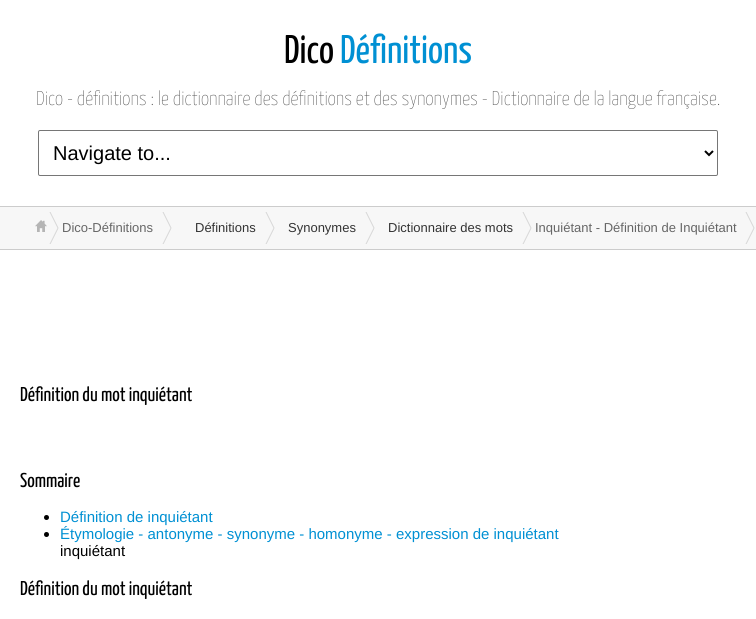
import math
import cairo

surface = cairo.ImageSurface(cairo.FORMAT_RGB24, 756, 619)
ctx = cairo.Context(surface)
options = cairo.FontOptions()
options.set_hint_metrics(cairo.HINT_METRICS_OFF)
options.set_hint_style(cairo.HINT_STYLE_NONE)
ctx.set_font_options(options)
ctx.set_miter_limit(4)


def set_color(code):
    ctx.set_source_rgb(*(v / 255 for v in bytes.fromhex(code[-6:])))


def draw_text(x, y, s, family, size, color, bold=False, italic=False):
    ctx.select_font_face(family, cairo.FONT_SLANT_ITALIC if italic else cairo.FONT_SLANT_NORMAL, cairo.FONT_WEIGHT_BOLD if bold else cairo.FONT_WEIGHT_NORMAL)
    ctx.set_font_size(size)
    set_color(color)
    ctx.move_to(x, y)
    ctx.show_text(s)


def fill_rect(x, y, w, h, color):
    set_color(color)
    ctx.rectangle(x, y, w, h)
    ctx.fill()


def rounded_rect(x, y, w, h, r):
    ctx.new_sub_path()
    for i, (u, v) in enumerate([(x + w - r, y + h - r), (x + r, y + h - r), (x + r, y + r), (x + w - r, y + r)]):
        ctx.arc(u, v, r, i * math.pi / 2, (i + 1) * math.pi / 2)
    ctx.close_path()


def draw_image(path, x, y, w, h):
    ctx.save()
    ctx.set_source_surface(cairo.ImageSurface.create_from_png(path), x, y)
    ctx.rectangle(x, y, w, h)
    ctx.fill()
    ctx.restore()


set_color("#ffffff")
ctx.paint()
draw_text(284, 63, "Dico", "Yanone Kaffeesatz", 40, "#000000")
draw_text(340, 63, "Définitions", "Yanone Kaffeesatz", 40, "#0090d3")
draw_text(36, 105, "Dico - définitions : le dictionnaire des définitions et des synonymes - Dictionnaire de la langue française.", "Yanone Kaffeesatz ExtraLight", 20, "#4f4f4f")
fill_rect(0, 206, 756, 1, "#cccccc")
rounded_rect(38.5, 130.5, 679, 45, 1.5)
set_color("#767676")
ctx.set_line_width(1)
ctx.stroke()
ctx.new_path()
ctx.move_to(705, 151)
ctx.line_to(709, 155)
ctx.line_to(713, 151)
set_color("#000000")
ctx.set_line_width(2)
ctx.stroke()
draw_text(53, 160, "Navigate to...", "Liberation Sans", 20, "#000000")
fill_rect(0, 207, 756, 42, "#f7f7f7")
fill_rect(0, 249, 756, 1, "#cccccc")
draw_image("assets/img1.png", 35, 220, 12, 12)
draw_image("assets/img2.png", 49, 212, 10, 32)
draw_text(62, 232, "Dico-Définitions", "Liberation Sans", 13, "#666666")
draw_image("assets/img2.png", 162, 212, 10, 32)
draw_text(195, 232, "Définitions", "Liberation Sans", 13, "#333333")
draw_image("assets/img2.png", 265, 212, 10, 32)
draw_text(288, 232, "Synonymes", "Liberation Sans", 13, "#333333")
draw_image("assets/img2.png", 365, 212, 10, 32)
draw_text(388, 232, "Dictionnaire des mots", "Liberation Sans", 13, "#333333")
draw_image("assets/img2.png", 522, 212, 10, 32)
draw_text(535, 232, "Inquiétant - Définition de Inquiétant", "Liberation Sans", 13, "#666666")
draw_image("assets/img2.png", 745, 212, 10, 32)
draw_text(20, 401, "Définition du mot inquiétant", "Yanone Kaffeesatz", 20, "#000000")
draw_text(20, 487, "Sommaire", "Yanone Kaffeesatz", 20, "#000000")
ctx.new_path()
ctx.arc(46.5, 517.5, 2.5, 0, 2 * math.pi)
ctx.fill()
draw_text(60, 522, "Définition de inquiétant", "Liberation Sans", 15, "#0090d3")
set_color("#000000")
ctx.new_path()
ctx.arc(46.5, 534.5, 2.5, 0, 2 * math.pi)
ctx.fill()
draw_text(60, 539, "Étymologie - antonyme - synonyme - homonyme - expression de inquiétant", "Liberation Sans", 15, "#0090d3")
draw_text(60, 556, "inquiétant", "Liberation Sans", 15, "#000000")
draw_text(20, 595, "Définition du mot inquiétant", "Yanone Kaffeesatz", 20, "#000000")
surface.write_to_png("output.png")
